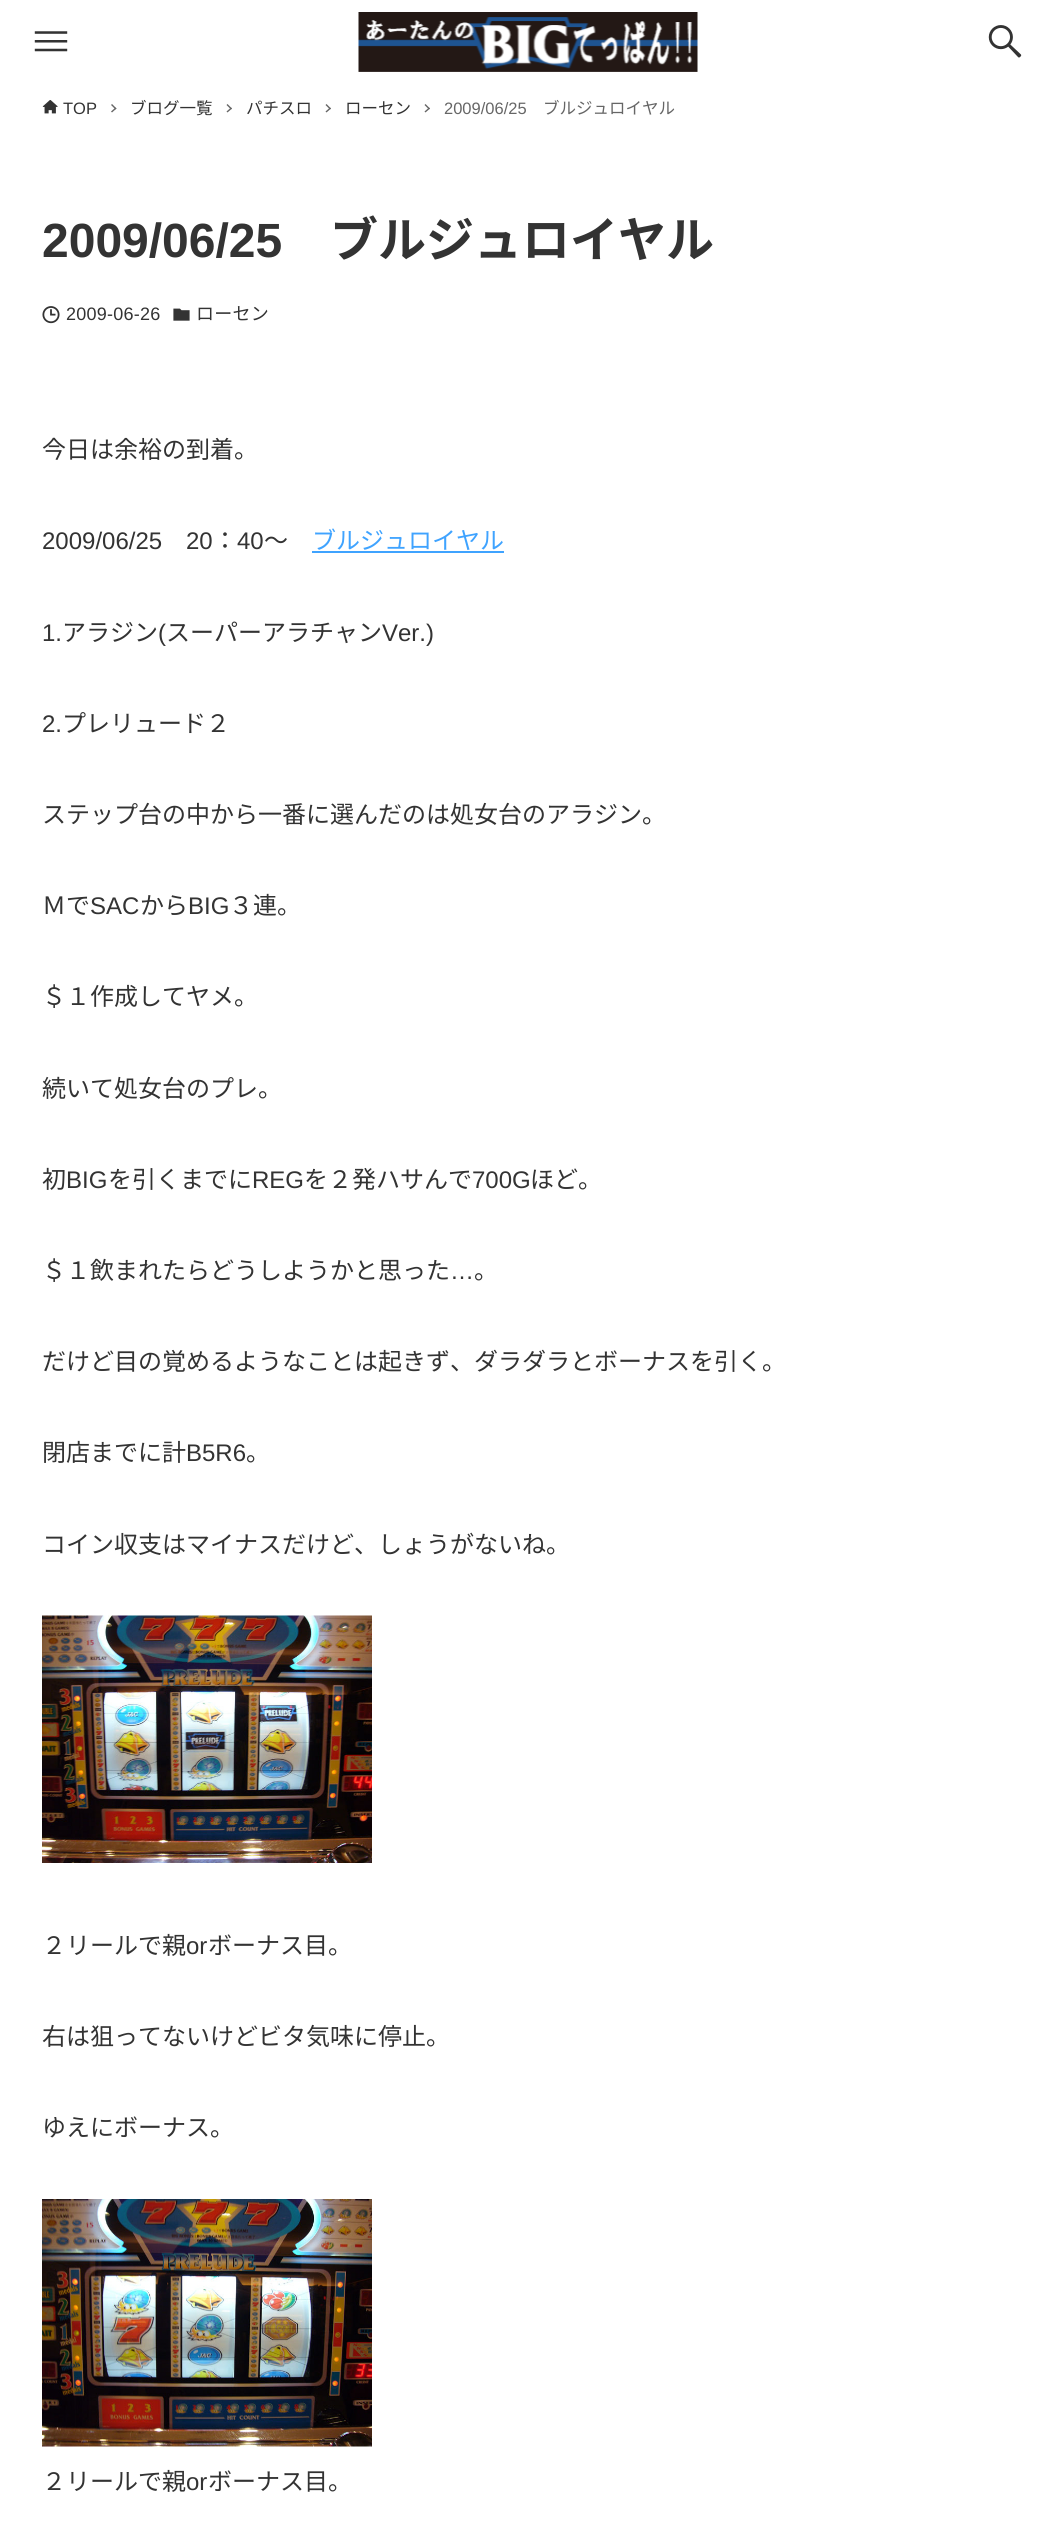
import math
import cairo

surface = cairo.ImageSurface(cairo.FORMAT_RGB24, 1056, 2545)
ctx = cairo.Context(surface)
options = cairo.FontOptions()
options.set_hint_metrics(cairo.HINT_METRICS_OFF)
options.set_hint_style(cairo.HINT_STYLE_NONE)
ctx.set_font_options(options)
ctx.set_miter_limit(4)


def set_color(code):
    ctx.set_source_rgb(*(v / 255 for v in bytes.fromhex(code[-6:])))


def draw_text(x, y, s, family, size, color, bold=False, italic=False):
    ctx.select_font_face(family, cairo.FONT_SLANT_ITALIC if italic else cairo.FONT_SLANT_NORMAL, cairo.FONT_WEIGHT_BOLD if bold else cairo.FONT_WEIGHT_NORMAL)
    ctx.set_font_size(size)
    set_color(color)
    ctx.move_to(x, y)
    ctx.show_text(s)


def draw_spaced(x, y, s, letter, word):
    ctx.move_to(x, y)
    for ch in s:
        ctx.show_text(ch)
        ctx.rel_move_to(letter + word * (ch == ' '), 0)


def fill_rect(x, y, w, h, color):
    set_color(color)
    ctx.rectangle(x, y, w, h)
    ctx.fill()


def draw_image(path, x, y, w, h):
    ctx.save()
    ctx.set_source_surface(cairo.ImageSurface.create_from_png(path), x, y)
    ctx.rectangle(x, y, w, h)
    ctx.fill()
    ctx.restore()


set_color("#ffffff")
ctx.paint()
draw_image("assets/img1.png", 34, 31, 34, 21)
draw_image("assets/img2.png", 358, 12, 340, 60)
draw_image("assets/img3.png", 988, 25, 34, 33)
draw_image("assets/img4.png", 42, 100, 16, 14)
draw_text(63, 114, "TOP", "Liberation Sans", 16.5, "#333333")
set_color("#666666")
ctx.new_path()
ctx.move_to(112, 104)
ctx.line_to(116.5, 108.5)
ctx.line_to(115.5, 109.5)
ctx.line_to(111, 105)
ctx.close_path()
ctx.fill()
ctx.new_path()
ctx.move_to(115.5, 107.5)
ctx.line_to(116.5, 108.5)
ctx.line_to(112, 112.5)
ctx.line_to(111, 111.5)
ctx.close_path()
ctx.fill()
draw_text(130, 114, "ブログ一覧", "Noto Sans JP", 16.5, "#333333")
set_color("#666666")
ctx.new_path()
ctx.move_to(227.5, 104)
ctx.line_to(232, 108.5)
ctx.line_to(231, 109.5)
ctx.line_to(226.5, 105)
ctx.close_path()
ctx.fill()
ctx.new_path()
ctx.move_to(231, 107.5)
ctx.line_to(232, 108.5)
ctx.line_to(227.5, 112.5)
ctx.line_to(226.5, 111.5)
ctx.close_path()
ctx.fill()
draw_text(246, 114, "パチスロ", "Noto Sans JP", 16.5, "#333333")
set_color("#666666")
ctx.new_path()
ctx.move_to(326.5, 104)
ctx.line_to(331, 108.5)
ctx.line_to(330, 109.5)
ctx.line_to(325.5, 105)
ctx.close_path()
ctx.fill()
ctx.new_path()
ctx.move_to(330, 107.5)
ctx.line_to(331, 108.5)
ctx.line_to(326.5, 112.5)
ctx.line_to(325.5, 111.5)
ctx.close_path()
ctx.fill()
draw_text(345, 114, "ローセン", "Noto Sans JP", 16.5, "#333333")
set_color("#666666")
ctx.new_path()
ctx.move_to(425.5, 104)
ctx.line_to(430, 108.5)
ctx.line_to(429, 109.5)
ctx.line_to(424.5, 105)
ctx.close_path()
ctx.fill()
ctx.new_path()
ctx.move_to(429, 107.5)
ctx.line_to(430, 108.5)
ctx.line_to(425.5, 112.5)
ctx.line_to(424.5, 111.5)
ctx.close_path()
ctx.fill()
draw_text(444, 114, "2009/06/25", "Liberation Sans", 16.5, "#666666")
draw_text(543, 114, "ブルジュロイヤル", "Noto Sans JP", 16.5, "#666666")
draw_text(42, 257, "2009/06/25", "Liberation Sans", 48, "#333333", bold=True)
draw_text(330, 257, "ブルジュロイヤル", "Noto Sans JP", 48, "#333333", bold=True)
draw_image("assets/img5.png", 42, 306, 18, 18)
ctx.select_font_face("Liberation Sans")
ctx.set_font_size(18)
draw_spaced(66, 320, "2009-06-26", 0.25, 0)
draw_image("assets/img6.png", 173, 308, 17, 13)
ctx.select_font_face("Noto Sans JP")
draw_spaced(196, 320, "ローセン", 0.25, 0)
draw_text(42, 458, "今日は余裕の到着。", "Noto Sans JP", 24, "#333333")
draw_text(42, 549, "2009/06/25", "Liberation Sans", 24, "#333333")
draw_text(186, 549, "20", "Liberation Sans", 24, "#333333")
draw_text(213, 549, "：", "Noto Sans JP", 24, "#333333")
draw_text(237, 549, "40", "Liberation Sans", 24, "#333333")
draw_text(264, 549, "～", "Noto Sans JP", 24, "#333333")
draw_text(312, 549, "ブルジュロイヤル", "Noto Sans JP", 24, "#3fa3ff")
fill_rect(312, 551, 192, 2, "#3fa3ff")
draw_text(42, 641, "1.", "Liberation Sans", 24, "#333333")
draw_text(62, 641, "アラジン", "Noto Sans JP", 24, "#333333")
draw_text(158, 641, "(", "Liberation Sans", 24, "#333333")
draw_text(166, 641, "スーパーアラチャン", "Noto Sans JP", 24, "#333333")
draw_text(382, 641, "Ver.)", "Liberation Sans", 24, "#333333")
draw_text(42, 732, "2.", "Liberation Sans", 24, "#333333")
draw_text(62, 732, "プレリュード２", "Noto Sans JP", 24, "#333333")
draw_text(42, 823, "ステップ台の中から一番に選んだのは処女台のアラジン。", "Noto Sans JP", 24, "#333333")
draw_text(42, 914, "Ｍで", "Noto Sans JP", 24, "#333333")
draw_text(90, 914, "SAC", "Liberation Sans", 24, "#333333")
draw_text(140, 914, "から", "Noto Sans JP", 24, "#333333")
draw_text(188, 914, "BIG", "Liberation Sans", 24, "#333333")
draw_text(229, 914, "３連。", "Noto Sans JP", 24, "#333333")
draw_text(42, 1005, "＄１作成してヤメ。", "Noto Sans JP", 24, "#333333")
draw_text(42, 1097, "続いて処女台のプレ。", "Noto Sans JP", 24, "#333333")
draw_text(42, 1188, "初", "Noto Sans JP", 24, "#333333")
draw_text(66, 1188, "BIG", "Liberation Sans", 24, "#333333")
draw_text(108, 1188, "を引くまでに", "Noto Sans JP", 24, "#333333")
draw_text(252, 1188, "REG", "Liberation Sans", 24, "#333333")
draw_text(304, 1188, "を２発ハサんで", "Noto Sans JP", 24, "#333333")
draw_text(472, 1188, "700G", "Liberation Sans", 24, "#333333")
draw_text(530, 1188, "ほど。", "Noto Sans JP", 24, "#333333")
draw_text(42, 1279, "＄１飲まれたらどうしようかと思った", "Noto Sans JP", 24, "#333333")
draw_text(450, 1279, "…", "Liberation Sans", 24, "#333333")
draw_text(474, 1279, "。", "Noto Sans JP", 24, "#333333")
draw_text(42, 1370, "だけど目の覚めるようなことは起きず、ダラダラとボーナスを引く。", "Noto Sans JP", 24, "#333333")
draw_text(42, 1461, "閉店までに計", "Noto Sans JP", 24, "#333333")
draw_text(186, 1461, "B5R6", "Liberation Sans", 24, "#333333")
draw_text(246, 1461, "。", "Noto Sans JP", 24, "#333333")
draw_text(42, 1553, "コイン収支はマイナスだけど、しょうがないね。", "Noto Sans JP", 24, "#333333")
draw_image("assets/img7.png", 42, 1615, 330, 248)
draw_text(42, 1954, "２リールで親", "Noto Sans JP", 24, "#333333")
draw_text(186, 1954, "or", "Liberation Sans", 24, "#333333")
draw_text(208, 1954, "ボーナス目。", "Noto Sans JP", 24, "#333333")
draw_text(42, 2045, "右は狙ってないけどビタ気味に停止。", "Noto Sans JP", 24, "#333333")
draw_text(42, 2136, "ゆえにボーナス。", "Noto Sans JP", 24, "#333333")
draw_image("assets/img8.png", 42, 2199, 330, 248)
draw_text(42, 2490, "２リールで親", "Noto Sans JP", 24, "#333333")
draw_text(186, 2490, "or", "Liberation Sans", 24, "#333333")
draw_text(208, 2490, "ボーナス目。", "Noto Sans JP", 24, "#333333")
surface.write_to_png("output.png")
